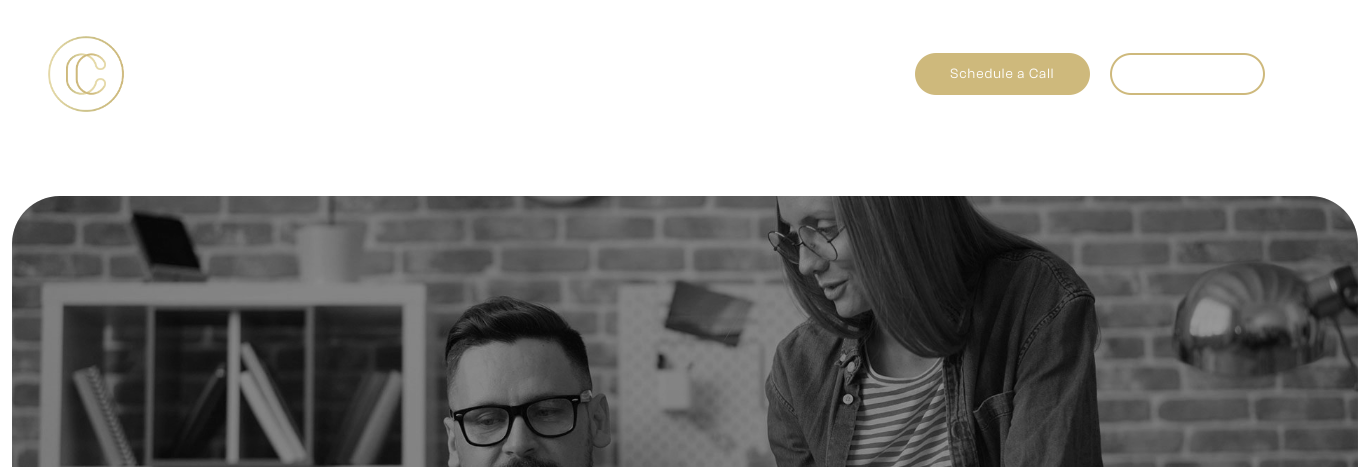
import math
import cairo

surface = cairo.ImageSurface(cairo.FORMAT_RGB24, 1370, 467)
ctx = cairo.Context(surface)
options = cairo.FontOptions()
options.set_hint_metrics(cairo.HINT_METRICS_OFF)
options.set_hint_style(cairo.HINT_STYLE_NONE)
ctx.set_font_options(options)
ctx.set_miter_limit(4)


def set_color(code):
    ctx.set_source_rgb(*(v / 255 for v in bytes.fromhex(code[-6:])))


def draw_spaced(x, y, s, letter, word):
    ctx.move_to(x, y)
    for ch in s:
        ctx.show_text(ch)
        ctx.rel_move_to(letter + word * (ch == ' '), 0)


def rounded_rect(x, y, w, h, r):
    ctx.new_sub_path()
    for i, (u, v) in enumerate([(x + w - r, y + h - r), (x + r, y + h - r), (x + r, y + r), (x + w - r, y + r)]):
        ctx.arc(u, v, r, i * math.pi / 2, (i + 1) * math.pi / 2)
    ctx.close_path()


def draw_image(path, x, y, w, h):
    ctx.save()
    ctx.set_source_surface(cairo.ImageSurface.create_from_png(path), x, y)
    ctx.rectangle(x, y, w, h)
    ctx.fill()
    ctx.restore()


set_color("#ffffff")
ctx.paint()
draw_image("assets/img1.png", 48, 36, 76, 76)
set_color("#ceb97c")
rounded_rect(916, 54, 173, 40, 20)
ctx.fill_preserve()
ctx.stroke()
ctx.select_font_face("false")
ctx.set_font_size(14)
set_color("#ffffff")
draw_spaced(950, 78, "Schedule a Call", 1, 0)
rounded_rect(1111, 54, 153, 40, 20)
set_color("#ceb97c")
ctx.stroke()
draw_image("assets/img2.png", 12, 196, 1346, 271)
ctx.set_source_rgba(0, 0, 0, 0.4)
ctx.new_path()
ctx.move_to(60, 196)
ctx.line_to(1310, 196)
ctx.curve_to(1336.5, 196, 1358, 217.5, 1358, 244)
ctx.line_to(1358, 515)
ctx.line_to(12, 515)
ctx.line_to(12, 244)
ctx.curve_to(12, 217.5, 33.5, 196, 60, 196)
ctx.close_path()
ctx.fill()
surface.write_to_png("output.png")
